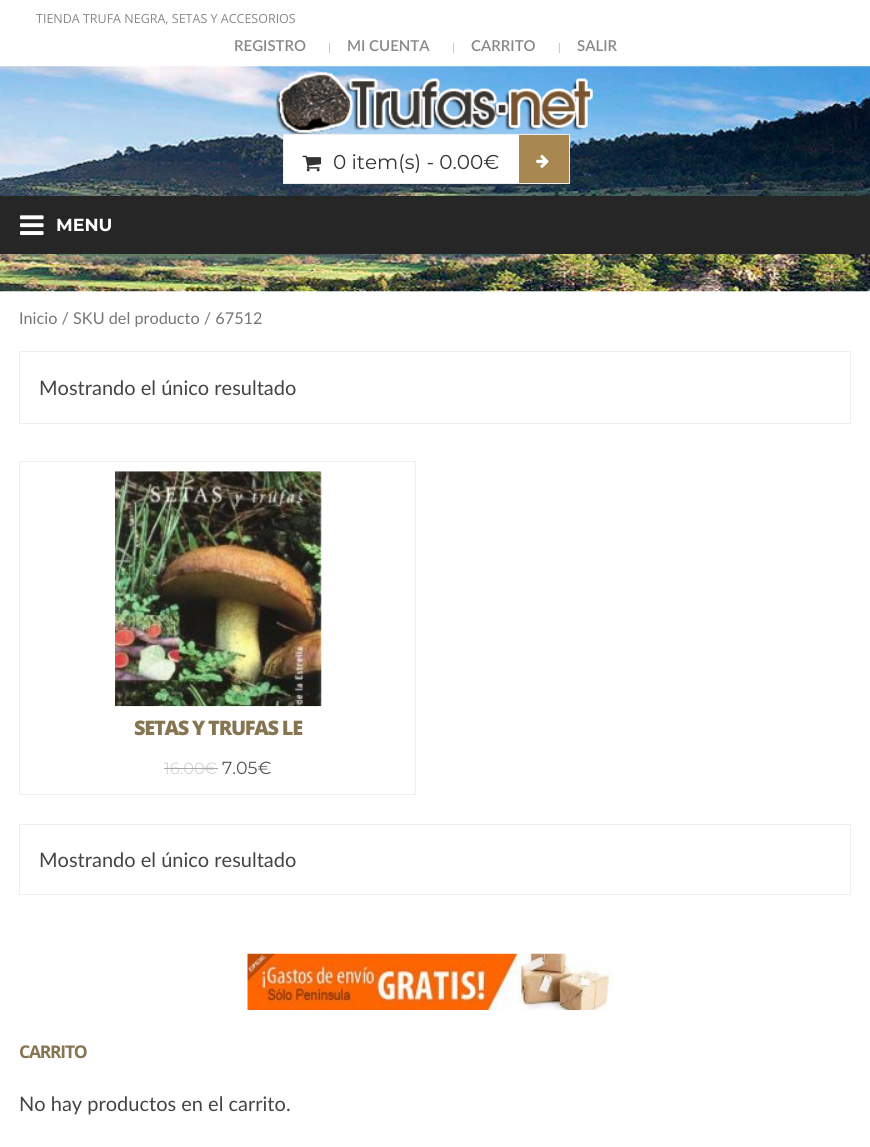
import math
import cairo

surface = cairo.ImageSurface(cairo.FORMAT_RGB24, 870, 1147)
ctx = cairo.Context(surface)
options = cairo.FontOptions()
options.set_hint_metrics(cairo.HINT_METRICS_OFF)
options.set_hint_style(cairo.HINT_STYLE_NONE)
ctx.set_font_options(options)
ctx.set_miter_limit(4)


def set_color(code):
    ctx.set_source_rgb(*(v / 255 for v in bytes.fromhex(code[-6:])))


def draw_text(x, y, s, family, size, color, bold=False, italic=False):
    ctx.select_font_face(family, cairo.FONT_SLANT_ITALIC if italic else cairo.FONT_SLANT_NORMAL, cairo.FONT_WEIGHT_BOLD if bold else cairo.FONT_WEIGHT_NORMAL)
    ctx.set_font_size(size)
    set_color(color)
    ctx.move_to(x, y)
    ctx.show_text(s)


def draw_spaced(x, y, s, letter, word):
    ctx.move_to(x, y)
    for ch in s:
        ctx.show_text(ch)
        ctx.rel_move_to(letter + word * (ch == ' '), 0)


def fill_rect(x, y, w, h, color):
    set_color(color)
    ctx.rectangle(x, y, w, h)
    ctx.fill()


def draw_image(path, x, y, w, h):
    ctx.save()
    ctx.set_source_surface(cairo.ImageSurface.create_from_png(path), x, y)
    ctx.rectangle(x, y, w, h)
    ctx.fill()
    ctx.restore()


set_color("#ffffff")
ctx.paint()
draw_text(36, 23, "TIENDA TRUFA NEGRA, SETAS Y ACCESORIOS", "Open Sans", 12.5, "#888888")
draw_text(234, 51, "REGISTRO", "Lato SemiBold", 15, "#888888")
fill_rect(329, 43, 1, 10, "#cccccc")
draw_text(347, 51, "MI CUENTA", "Lato SemiBold", 15, "#888888")
fill_rect(453, 43, 1, 10, "#cccccc")
draw_text(471, 51, "CARRITO", "Lato SemiBold", 15, "#888888")
fill_rect(559, 43, 1, 10, "#cccccc")
draw_text(577, 51, "SALIR", "Lato SemiBold", 15, "#888888")
draw_image("assets/img1.png", 0, 66, 870, 226)
draw_image("assets/img2.png", 276, 72, 317, 62)
draw_image("assets/img3.png", 276, 72, 317, 62)
fill_rect(284, 135, 235, 48, "#ffffff")
ctx.rectangle(283.5, 134.5, 286, 49)
set_color("#eeeeee")
ctx.set_line_width(1)
ctx.stroke()
draw_image("assets/img4.png", 302, 155, 20, 17)
draw_text(333, 169, "0 item(s) - 0.00€", "Montserrat", 20, "#333333")
fill_rect(519, 135, 50, 48, "#a88751")
draw_image("assets/img5.png", 536, 154, 13, 14)
fill_rect(0, 196, 870, 58, "#262626")
draw_image("assets/img6.png", 20, 215, 24, 20)
draw_text(56, 231, "MENU", "Montserrat", 17.5, "#ffffff", bold=True)
draw_text(19, 324, "Inicio / SKU del producto / 67512", "Lato", 16.25, "#767676")
ctx.rectangle(19.5, 351.5, 831, 72)
set_color("#eeeeee")
ctx.stroke()
draw_text(39, 395, "Mostrando el único resultado", "Lato", 20, "#444444")
ctx.rectangle(19.5, 461.5, 396, 333)
set_color("#eeeeee")
ctx.stroke()
draw_image("assets/img7.png", 115, 471, 207, 236)
ctx.select_font_face("Open Sans ExtraBold")
set_color("#857550")
draw_spaced(134, 735, "SETAS Y TRUFAS LE", -1.25, 0)
draw_text(164, 774, "16.00", "Montserrat", 16.25, "#d5d5d5")
fill_rect(164, 768, 41, 1, "#aaaaaa")
draw_text(204, 774, "€", "Montserrat", 16.25, "#d5d5d5")
fill_rect(205, 768, 13, 1, "#aaaaaa")
draw_text(222, 774, "7.05€", "Montserrat", 17.5, "#555555")
ctx.rectangle(19.5, 824.5, 831, 70)
set_color("#eeeeee")
ctx.stroke()
draw_text(39, 867, "Mostrando el único resultado", "Lato", 20, "#444444")
draw_image("assets/img8.png", 247, 953, 368, 57)
ctx.select_font_face("Open Sans", cairo.FONT_SLANT_NORMAL, cairo.FONT_WEIGHT_BOLD)
ctx.set_font_size(17.5)
set_color("#857550")
draw_spaced(19, 1058, "CARRITO", -1.25, 0)
draw_text(19, 1111, "No hay productos en el carrito.", "Lato", 20, "#444444")
surface.write_to_png("output.png")
